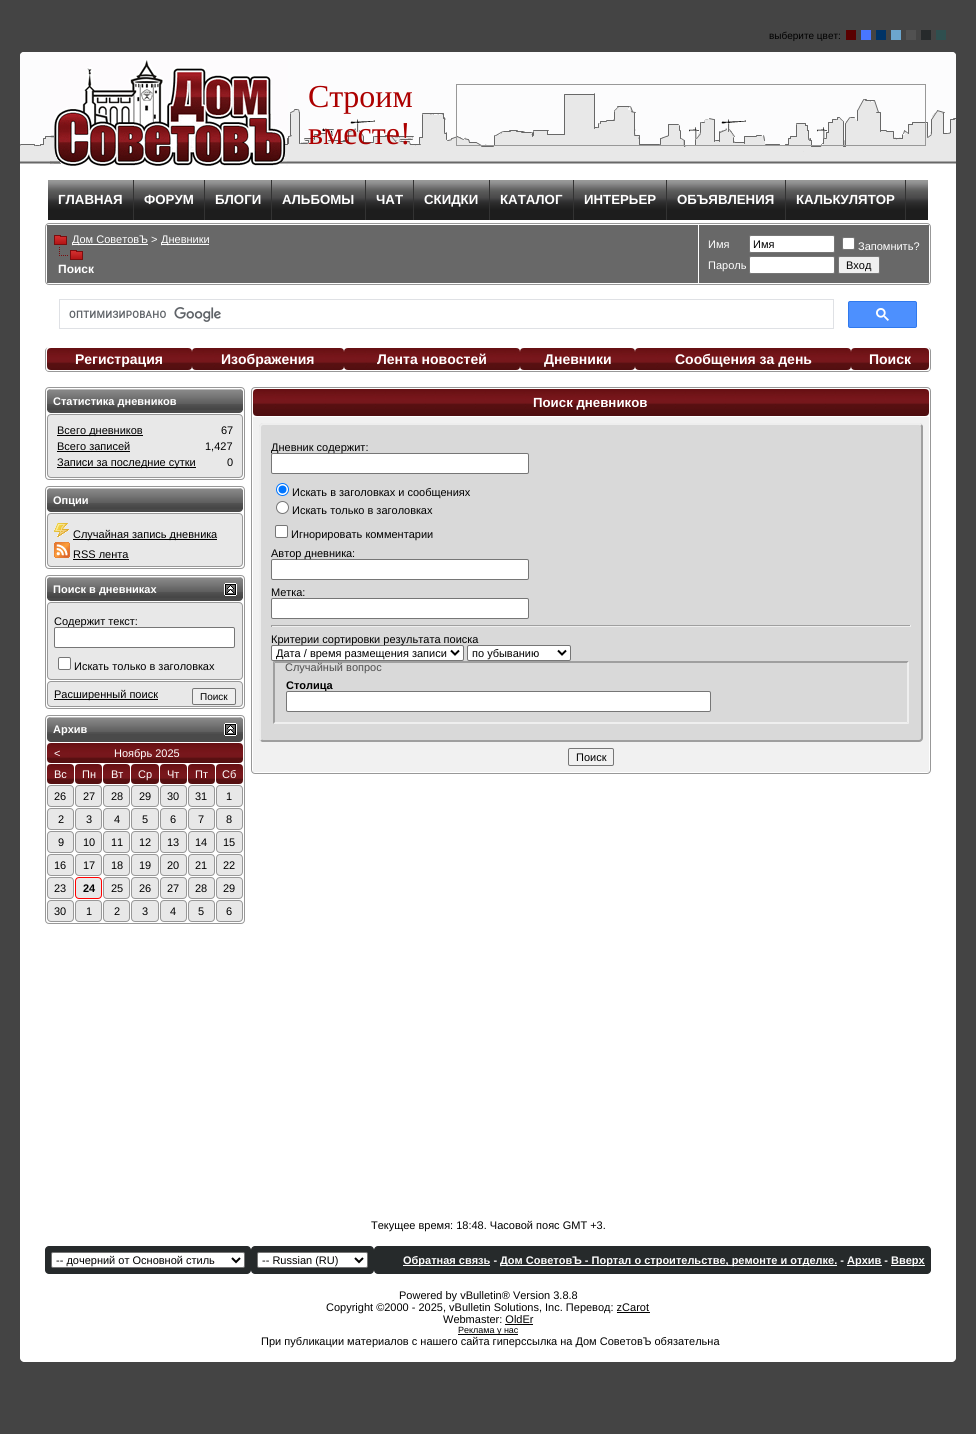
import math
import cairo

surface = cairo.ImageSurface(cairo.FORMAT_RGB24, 976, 1434)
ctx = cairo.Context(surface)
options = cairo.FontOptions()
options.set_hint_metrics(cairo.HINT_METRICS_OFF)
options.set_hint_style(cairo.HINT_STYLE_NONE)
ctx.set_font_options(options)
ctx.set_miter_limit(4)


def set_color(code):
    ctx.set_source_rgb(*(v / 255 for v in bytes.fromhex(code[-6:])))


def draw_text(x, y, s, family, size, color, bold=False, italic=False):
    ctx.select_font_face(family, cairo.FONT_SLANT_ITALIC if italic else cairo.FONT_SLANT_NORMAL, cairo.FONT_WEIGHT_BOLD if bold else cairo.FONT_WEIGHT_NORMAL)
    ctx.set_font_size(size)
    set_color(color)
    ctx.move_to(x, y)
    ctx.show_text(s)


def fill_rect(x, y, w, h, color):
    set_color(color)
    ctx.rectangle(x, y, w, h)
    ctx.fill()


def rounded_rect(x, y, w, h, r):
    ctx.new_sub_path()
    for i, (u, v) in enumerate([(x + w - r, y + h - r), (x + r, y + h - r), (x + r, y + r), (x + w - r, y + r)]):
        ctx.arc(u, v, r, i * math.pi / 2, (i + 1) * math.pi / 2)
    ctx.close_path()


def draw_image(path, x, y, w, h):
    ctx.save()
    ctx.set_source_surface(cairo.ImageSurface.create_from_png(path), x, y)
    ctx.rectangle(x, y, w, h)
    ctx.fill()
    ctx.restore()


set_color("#444444")
ctx.paint()
draw_text(769, 39, "выберите цвет:", "Liberation Sans", 10, "#000000")
fill_rect(846, 30, 10, 10, "#5a0000")
fill_rect(861, 30, 10, 10, "#4876ff")
fill_rect(876, 30, 10, 10, "#003366")
fill_rect(891, 30, 10, 10, "#6ca6cd")
fill_rect(906, 30, 10, 10, "#515151")
fill_rect(921, 30, 10, 10, "#262a2b")
fill_rect(936, 30, 10, 10, "#2f4f4f")
set_color("#ffffff")
ctx.new_path()
ctx.move_to(24, 52)
ctx.line_to(952, 52)
ctx.curve_to(954, 52, 956, 54, 956, 56)
ctx.line_to(956, 177)
ctx.line_to(20, 177)
ctx.line_to(20, 56)
ctx.curve_to(20, 54, 22, 52, 24, 52)
ctx.close_path()
ctx.fill()
draw_image("assets/img1.png", 20, 52, 936, 112)
draw_image("assets/img2.png", 50, 60, 238, 106)
draw_text(308, 107, "Строим", "Liberation Serif", 32, "#ac0000")
draw_text(308, 144, "вместе!", "Liberation Serif", 32, "#ac0000")
ctx.rectangle(456.5, 84.5, 469, 61)
set_color("#989898")
ctx.set_line_width(1)
ctx.stroke()
set_color("#ffffff")
ctx.new_path()
ctx.move_to(20, 177)
ctx.line_to(956, 177)
ctx.line_to(956, 1358)
ctx.curve_to(956, 1360, 954, 1362, 952, 1362)
ctx.line_to(24, 1362)
ctx.curve_to(22, 1362, 20, 1360, 20, 1358)
ctx.close_path()
ctx.fill()
draw_image("assets/img3.png", 48, 180, 880, 40)
fill_rect(133, 180, 1, 40, "#333333")
draw_text(58, 204, "ГЛАВНАЯ", "Liberation Sans", 13.25, "#ffffff", bold=True)
fill_rect(204, 180, 1, 40, "#333333")
draw_text(144, 204, "ФОРУМ", "Liberation Sans", 13.25, "#ffffff", bold=True)
fill_rect(271, 180, 1, 40, "#333333")
draw_text(215, 204, "БЛОГИ", "Liberation Sans", 13.25, "#ffffff", bold=True)
fill_rect(365, 180, 1, 40, "#333333")
draw_text(282, 204, "АЛЬБОМЫ", "Liberation Sans", 13.25, "#ffffff", bold=True)
fill_rect(413, 180, 1, 40, "#333333")
draw_text(376, 204, "ЧАТ", "Liberation Sans", 13.25, "#ffffff", bold=True)
fill_rect(489, 180, 1, 40, "#333333")
draw_text(424, 204, "СКИДКИ", "Liberation Sans", 13.25, "#ffffff", bold=True)
fill_rect(573, 180, 1, 40, "#333333")
draw_text(500, 204, "КАТАЛОГ", "Liberation Sans", 13.25, "#ffffff", bold=True)
fill_rect(666, 180, 1, 40, "#333333")
draw_text(584, 204, "ИНТЕРЬЕР", "Liberation Sans", 13.25, "#ffffff", bold=True)
fill_rect(785, 180, 1, 40, "#333333")
draw_text(677, 204, "ОБЪЯВЛЕНИЯ", "Liberation Sans", 13.25, "#ffffff", bold=True)
fill_rect(905, 180, 1, 40, "#333333")
draw_text(796, 204, "КАЛЬКУЛЯТОР", "Liberation Sans", 13.25, "#ffffff", bold=True)
rounded_rect(45.5, 223.5, 885, 61, 3.5)
set_color("#989898")
ctx.stroke()
fill_rect(47, 225, 651, 58, "#686868")
draw_image("assets/img4.png", 54, 235, 13, 10)
fill_rect(72, 244, 76, 1, "#ffffff")
draw_text(72, 243, "Дом СоветовЪ", "Liberation Sans", 11, "#ffffff")
draw_text(151, 243, ">", "Liberation Sans", 11, "#ffffff")
fill_rect(161, 244, 48, 1, "#ffffff")
draw_text(161, 243, "Дневники", "Liberation Sans", 11, "#ffffff")
draw_image("assets/img5.png", 59, 247, 24, 13)
draw_text(58, 273, "Поиск", "Liberation Sans", 12, "#ffffff", bold=True)
fill_rect(699, 225, 230, 58, "#686868")
draw_text(708, 248, "Имя", "Liberation Sans", 11, "#ffffff")
rounded_rect(749.5, 235.5, 85, 17, 1.5)
ctx.fill_preserve()
set_color("#767676")
ctx.stroke()
draw_text(753, 248, "Имя", "Liberation Sans", 11, "#000000")
set_color("#ffffff")
rounded_rect(842.5, 237.5, 12, 12, 1.5)
ctx.fill_preserve()
set_color("#767676")
ctx.stroke()
draw_text(858, 250, "Запомнить?", "Liberation Sans", 11, "#ffffff")
draw_text(708, 269, "Пароль", "Liberation Sans", 11, "#ffffff")
rounded_rect(749.5, 256.5, 85, 17, 1.5)
ctx.fill_preserve()
set_color("#767676")
ctx.stroke()
set_color("#efefef")
rounded_rect(838.5, 256.5, 41, 17, 1.5)
ctx.fill_preserve()
set_color("#767676")
ctx.stroke()
draw_text(846, 269, "Вход", "Liberation Sans", 11, "#000000")
ctx.rectangle(59.5, 299.5, 774, 29)
set_color("#dfe1e5")
ctx.stroke()
draw_image("assets/img6.png", 69, 307, 152, 15)
set_color("#4d90fe")
rounded_rect(848.5, 301.5, 68, 26, 1.5)
ctx.fill_preserve()
set_color("#3079ed")
ctx.stroke()
draw_image("assets/img7.png", 876, 308, 13, 13)
set_color("#989898")
ctx.set_fill_rule(cairo.FILL_RULE_EVEN_ODD)
ctx.new_path()
ctx.move_to(49, 347)
ctx.line_to(927, 347)
ctx.curve_to(929, 347, 931, 349, 931, 351)
ctx.line_to(931, 368)
ctx.curve_to(931, 370, 929, 372, 927, 372)
ctx.line_to(49, 372)
ctx.curve_to(47, 372, 45, 370, 45, 368)
ctx.line_to(45, 351)
ctx.curve_to(45, 349, 47, 347, 49, 347)
ctx.close_path()
ctx.move_to(49, 347)
ctx.line_to(927, 347)
ctx.curve_to(929, 347, 930, 349, 930, 351)
ctx.line_to(930, 368)
ctx.curve_to(930, 370, 929, 371, 927, 371)
ctx.line_to(49, 371)
ctx.curve_to(47, 371, 46, 370, 46, 368)
ctx.line_to(46, 351)
ctx.curve_to(46, 349, 47, 347, 49, 347)
ctx.close_path()
ctx.fill()
draw_image("assets/img8.png", 47, 348, 145, 22)
draw_text(75, 364, "Регистрация", "Liberation Sans", 14, "#ffffff", bold=True)
draw_image("assets/img9.png", 192, 348, 152, 22)
draw_text(221, 364, "Изображения", "Liberation Sans", 14, "#ffffff", bold=True)
draw_image("assets/img10.png", 344, 348, 176, 22)
draw_text(377, 364, "Лента новостей", "Liberation Sans", 14, "#ffffff", bold=True)
draw_image("assets/img11.png", 520, 348, 115, 22)
draw_text(544, 364, "Дневники", "Liberation Sans", 14, "#ffffff", bold=True)
draw_image("assets/img12.png", 635, 348, 216, 22)
draw_text(675, 364, "Сообщения за день", "Liberation Sans", 14, "#ffffff", bold=True)
draw_image("assets/img13.png", 851, 348, 78, 22)
draw_text(869, 364, "Поиск", "Liberation Sans", 14, "#ffffff", bold=True)
rounded_rect(45.5, 387.5, 199, 92, 3.5)
set_color("#989898")
ctx.stroke()
set_color("#4a4a4a")
rounded_rect(47, 389, 196, 24, 4)
ctx.fill()
draw_image("assets/img14.png", 47, 389, 196, 21)
draw_text(53, 405, "Статистика дневников", "Liberation Sans", 11, "#ffffff", bold=True)
set_color("#e8e8e8")
rounded_rect(47.5, 414.5, 195, 63, 3.5)
ctx.fill_preserve()
set_color("#989898")
ctx.stroke()
fill_rect(57, 435, 86, 1, "#000000")
draw_text(57, 434, "Всего дневников", "Liberation Sans", 11, "#000000")
draw_text(221, 434, "67", "Liberation Sans", 11, "#000000")
draw_text(57, 450, "Всего записей", "Liberation Sans", 11, "#000000")
fill_rect(57, 451, 73, 1, "#000000")
draw_text(205, 450, "1,427", "Liberation Sans", 11, "#000000")
fill_rect(57, 467, 139, 1, "#000000")
draw_text(57, 466, "Записи за последние сутки", "Liberation Sans", 11, "#000000")
draw_text(227, 466, "0", "Liberation Sans", 11, "#000000")
rounded_rect(45.5, 486.5, 199, 82, 3.5)
set_color("#989898")
ctx.stroke()
set_color("#4a4a4a")
rounded_rect(47, 488, 196, 24, 4)
ctx.fill()
draw_image("assets/img15.png", 47, 488, 196, 21)
draw_text(53, 504, "Опции", "Liberation Sans", 11, "#ffffff", bold=True)
set_color("#e8e8e8")
rounded_rect(47.5, 513.5, 195, 53, 3.5)
ctx.fill_preserve()
set_color("#989898")
ctx.stroke()
draw_image("assets/img16.png", 54, 523, 15, 15)
fill_rect(73, 539, 144, 1, "#000000")
draw_text(73, 538, "Случайная запись дневника", "Liberation Sans", 11, "#000000")
draw_image("assets/img17.png", 54, 542, 16, 16)
draw_text(73, 558, "RSS лента", "Liberation Sans", 11, "#000000")
fill_rect(73, 559, 56, 1, "#000000")
rounded_rect(45.5, 575.5, 199, 133, 3.5)
set_color("#989898")
ctx.stroke()
set_color("#4a4a4a")
rounded_rect(47, 577, 196, 24, 4)
ctx.fill()
draw_image("assets/img14.png", 47, 577, 196, 21)
draw_text(53, 593, "Поиск в дневниках", "Liberation Sans", 11, "#ffffff", bold=True)
draw_image("assets/img18.png", 224, 583, 13, 13)
set_color("#e8e8e8")
rounded_rect(47.5, 602.5, 195, 77, 3.5)
ctx.fill_preserve()
set_color("#989898")
ctx.stroke()
draw_text(54, 625, "Содержит текст:", "Liberation Sans", 11, "#000000")
set_color("#ffffff")
rounded_rect(54.5, 627.5, 180, 20, 1.5)
ctx.fill_preserve()
set_color("#767676")
ctx.stroke()
set_color("#ffffff")
rounded_rect(58.5, 657.5, 12, 12, 1.5)
ctx.fill_preserve()
set_color("#767676")
ctx.stroke()
draw_text(74, 670, "Искать только в заголовках", "Liberation Sans", 11, "#000000")
set_color("#e8e8e8")
rounded_rect(47.5, 681.5, 195, 25, 3.5)
ctx.fill_preserve()
set_color("#989898")
ctx.stroke()
fill_rect(54, 699, 104, 1, "#000000")
draw_text(54, 698, "Расширенный поиск", "Liberation Sans", 11, "#000000")
set_color("#efefef")
rounded_rect(192.5, 688.5, 43, 16, 1.5)
ctx.fill_preserve()
set_color("#767676")
ctx.stroke()
draw_text(200, 700, "Поиск", "Liberation Sans", 10, "#000000")
rounded_rect(45.5, 715.5, 199, 208, 3.5)
set_color("#989898")
ctx.stroke()
set_color("#4a4a4a")
rounded_rect(47, 717, 196, 25, 4)
ctx.fill()
draw_image("assets/img19.png", 47, 717, 196, 17)
draw_text(53, 733, "Архив", "Liberation Sans", 11, "#ffffff", bold=True)
draw_image("assets/img18.png", 224, 723, 13, 13)
draw_image("assets/img20.png", 47, 743, 196, 20)
draw_text(54, 757, "<", "Liberation Sans", 11, "#ffffff")
draw_text(114, 757, "Ноябрь 2025", "Liberation Sans", 11, "#ffffff")
draw_image("assets/img21.png", 47, 764, 27, 20)
draw_text(54, 778, "Вс", "Liberation Sans", 11, "#ffffff")
draw_image("assets/img21.png", 75, 764, 27, 20)
draw_text(82, 778, "Пн", "Liberation Sans", 11, "#ffffff")
draw_image("assets/img21.png", 103, 764, 27, 20)
draw_text(111, 778, "Вт", "Liberation Sans", 11, "#ffffff")
draw_image("assets/img22.png", 131, 764, 28, 20)
draw_text(138, 778, "Ср", "Liberation Sans", 11, "#ffffff")
draw_image("assets/img21.png", 160, 764, 27, 20)
draw_text(167, 778, "Чт", "Liberation Sans", 11, "#ffffff")
draw_image("assets/img21.png", 188, 764, 27, 20)
draw_text(195, 778, "Пт", "Liberation Sans", 11, "#ffffff")
draw_image("assets/img21.png", 216, 764, 27, 20)
draw_text(222, 778, "Сб", "Liberation Sans", 11, "#ffffff")
set_color("#e8e8e8")
rounded_rect(47.5, 785.5, 26, 21, 3.5)
ctx.fill_preserve()
set_color("#989898")
ctx.stroke()
draw_text(54, 800, "26", "Liberation Sans", 11, "#000000")
set_color("#e8e8e8")
rounded_rect(75.5, 785.5, 26, 21, 3.5)
ctx.fill_preserve()
set_color("#989898")
ctx.stroke()
draw_text(83, 800, "27", "Liberation Sans", 11, "#000000")
set_color("#e8e8e8")
rounded_rect(103.5, 785.5, 26, 21, 3.5)
ctx.fill_preserve()
set_color("#989898")
ctx.stroke()
draw_text(111, 800, "28", "Liberation Sans", 11, "#000000")
set_color("#e8e8e8")
rounded_rect(131.5, 785.5, 27, 21, 3.5)
ctx.fill_preserve()
set_color("#989898")
ctx.stroke()
draw_text(139, 800, "29", "Liberation Sans", 11, "#000000")
set_color("#e8e8e8")
rounded_rect(160.5, 785.5, 26, 21, 3.5)
ctx.fill_preserve()
set_color("#989898")
ctx.stroke()
draw_text(167, 800, "30", "Liberation Sans", 11, "#000000")
set_color("#e8e8e8")
rounded_rect(188.5, 785.5, 26, 21, 3.5)
ctx.fill_preserve()
set_color("#989898")
ctx.stroke()
draw_text(195, 800, "31", "Liberation Sans", 11, "#000000")
set_color("#e8e8e8")
rounded_rect(216.5, 785.5, 26, 21, 3.5)
ctx.fill_preserve()
set_color("#989898")
ctx.stroke()
draw_text(226, 800, "1", "Liberation Sans", 11, "#000000")
set_color("#e8e8e8")
rounded_rect(47.5, 808.5, 26, 21, 3.5)
ctx.fill_preserve()
set_color("#989898")
ctx.stroke()
draw_text(58, 823, "2", "Liberation Sans", 11, "#000000")
set_color("#e8e8e8")
rounded_rect(75.5, 808.5, 26, 21, 3.5)
ctx.fill_preserve()
set_color("#989898")
ctx.stroke()
draw_text(86, 823, "3", "Liberation Sans", 11, "#000000")
set_color("#e8e8e8")
rounded_rect(103.5, 808.5, 26, 21, 3.5)
ctx.fill_preserve()
set_color("#989898")
ctx.stroke()
draw_text(114, 823, "4", "Liberation Sans", 11, "#000000")
set_color("#e8e8e8")
rounded_rect(131.5, 808.5, 27, 21, 3.5)
ctx.fill_preserve()
set_color("#989898")
ctx.stroke()
draw_text(142, 823, "5", "Liberation Sans", 11, "#000000")
set_color("#e8e8e8")
rounded_rect(160.5, 808.5, 26, 21, 3.5)
ctx.fill_preserve()
set_color("#989898")
ctx.stroke()
draw_text(170, 823, "6", "Liberation Sans", 11, "#000000")
set_color("#e8e8e8")
rounded_rect(188.5, 808.5, 26, 21, 3.5)
ctx.fill_preserve()
set_color("#989898")
ctx.stroke()
draw_text(198, 823, "7", "Liberation Sans", 11, "#000000")
set_color("#e8e8e8")
rounded_rect(216.5, 808.5, 26, 21, 3.5)
ctx.fill_preserve()
set_color("#989898")
ctx.stroke()
draw_text(226, 823, "8", "Liberation Sans", 11, "#000000")
set_color("#e8e8e8")
rounded_rect(47.5, 831.5, 26, 21, 3.5)
ctx.fill_preserve()
set_color("#989898")
ctx.stroke()
draw_text(58, 846, "9", "Liberation Sans", 11, "#000000")
set_color("#e8e8e8")
rounded_rect(75.5, 831.5, 26, 21, 3.5)
ctx.fill_preserve()
set_color("#989898")
ctx.stroke()
draw_text(83, 846, "10", "Liberation Sans", 11, "#000000")
set_color("#e8e8e8")
rounded_rect(103.5, 831.5, 26, 21, 3.5)
ctx.fill_preserve()
set_color("#989898")
ctx.stroke()
draw_text(111, 846, "11", "Liberation Sans", 11, "#000000")
set_color("#e8e8e8")
rounded_rect(131.5, 831.5, 27, 21, 3.5)
ctx.fill_preserve()
set_color("#989898")
ctx.stroke()
draw_text(139, 846, "12", "Liberation Sans", 11, "#000000")
set_color("#e8e8e8")
rounded_rect(160.5, 831.5, 26, 21, 3.5)
ctx.fill_preserve()
set_color("#989898")
ctx.stroke()
draw_text(167, 846, "13", "Liberation Sans", 11, "#000000")
set_color("#e8e8e8")
rounded_rect(188.5, 831.5, 26, 21, 3.5)
ctx.fill_preserve()
set_color("#989898")
ctx.stroke()
draw_text(195, 846, "14", "Liberation Sans", 11, "#000000")
set_color("#e8e8e8")
rounded_rect(216.5, 831.5, 26, 21, 3.5)
ctx.fill_preserve()
set_color("#989898")
ctx.stroke()
draw_text(223, 846, "15", "Liberation Sans", 11, "#000000")
set_color("#e8e8e8")
rounded_rect(47.5, 854.5, 26, 21, 3.5)
ctx.fill_preserve()
set_color("#989898")
ctx.stroke()
draw_text(54, 869, "16", "Liberation Sans", 11, "#000000")
set_color("#e8e8e8")
rounded_rect(75.5, 854.5, 26, 21, 3.5)
ctx.fill_preserve()
set_color("#989898")
ctx.stroke()
draw_text(83, 869, "17", "Liberation Sans", 11, "#000000")
set_color("#e8e8e8")
rounded_rect(103.5, 854.5, 26, 21, 3.5)
ctx.fill_preserve()
set_color("#989898")
ctx.stroke()
draw_text(111, 869, "18", "Liberation Sans", 11, "#000000")
set_color("#e8e8e8")
rounded_rect(131.5, 854.5, 27, 21, 3.5)
ctx.fill_preserve()
set_color("#989898")
ctx.stroke()
draw_text(139, 869, "19", "Liberation Sans", 11, "#000000")
set_color("#e8e8e8")
rounded_rect(160.5, 854.5, 26, 21, 3.5)
ctx.fill_preserve()
set_color("#989898")
ctx.stroke()
draw_text(167, 869, "20", "Liberation Sans", 11, "#000000")
set_color("#e8e8e8")
rounded_rect(188.5, 854.5, 26, 21, 3.5)
ctx.fill_preserve()
set_color("#989898")
ctx.stroke()
draw_text(195, 869, "21", "Liberation Sans", 11, "#000000")
set_color("#e8e8e8")
rounded_rect(216.5, 854.5, 26, 21, 3.5)
ctx.fill_preserve()
set_color("#989898")
ctx.stroke()
draw_text(223, 869, "22", "Liberation Sans", 11, "#000000")
set_color("#e8e8e8")
rounded_rect(47.5, 877.5, 26, 21, 3.5)
ctx.fill_preserve()
set_color("#989898")
ctx.stroke()
draw_text(54, 892, "23", "Liberation Sans", 11, "#000000")
set_color("#e8e8e8")
rounded_rect(75.5, 877.5, 26, 21, 3.5)
ctx.fill_preserve()
set_color("#ff0000")
ctx.stroke()
draw_text(83, 892, "24", "Liberation Sans", 11, "#000000", bold=True)
set_color("#e8e8e8")
rounded_rect(103.5, 877.5, 26, 21, 3.5)
ctx.fill_preserve()
set_color("#989898")
ctx.stroke()
draw_text(111, 892, "25", "Liberation Sans", 11, "#000000")
set_color("#e8e8e8")
rounded_rect(131.5, 877.5, 27, 21, 3.5)
ctx.fill_preserve()
set_color("#989898")
ctx.stroke()
draw_text(139, 892, "26", "Liberation Sans", 11, "#000000")
set_color("#e8e8e8")
rounded_rect(160.5, 877.5, 26, 21, 3.5)
ctx.fill_preserve()
set_color("#989898")
ctx.stroke()
draw_text(167, 892, "27", "Liberation Sans", 11, "#000000")
set_color("#e8e8e8")
rounded_rect(188.5, 877.5, 26, 21, 3.5)
ctx.fill_preserve()
set_color("#989898")
ctx.stroke()
draw_text(195, 892, "28", "Liberation Sans", 11, "#000000")
set_color("#e8e8e8")
rounded_rect(216.5, 877.5, 26, 21, 3.5)
ctx.fill_preserve()
set_color("#989898")
ctx.stroke()
draw_text(223, 892, "29", "Liberation Sans", 11, "#000000")
set_color("#e8e8e8")
rounded_rect(47.5, 900.5, 26, 21, 3.5)
ctx.fill_preserve()
set_color("#989898")
ctx.stroke()
draw_text(54, 915, "30", "Liberation Sans", 11, "#000000")
set_color("#e8e8e8")
rounded_rect(75.5, 900.5, 26, 21, 3.5)
ctx.fill_preserve()
set_color("#989898")
ctx.stroke()
draw_text(86, 915, "1", "Liberation Sans", 11, "#000000")
set_color("#e8e8e8")
rounded_rect(103.5, 900.5, 26, 21, 3.5)
ctx.fill_preserve()
set_color("#989898")
ctx.stroke()
draw_text(114, 915, "2", "Liberation Sans", 11, "#000000")
set_color("#e8e8e8")
rounded_rect(131.5, 900.5, 27, 21, 3.5)
ctx.fill_preserve()
set_color("#989898")
ctx.stroke()
draw_text(142, 915, "3", "Liberation Sans", 11, "#000000")
set_color("#e8e8e8")
rounded_rect(160.5, 900.5, 26, 21, 3.5)
ctx.fill_preserve()
set_color("#989898")
ctx.stroke()
draw_text(170, 915, "4", "Liberation Sans", 11, "#000000")
set_color("#e8e8e8")
rounded_rect(188.5, 900.5, 26, 21, 3.5)
ctx.fill_preserve()
set_color("#989898")
ctx.stroke()
draw_text(198, 915, "5", "Liberation Sans", 11, "#000000")
set_color("#e8e8e8")
rounded_rect(216.5, 900.5, 26, 21, 3.5)
ctx.fill_preserve()
set_color("#989898")
ctx.stroke()
draw_text(226, 915, "6", "Liberation Sans", 11, "#000000")
rounded_rect(251.5, 387.5, 679, 386, 3.5)
set_color("#989898")
ctx.stroke()
draw_image("assets/img23.png", 253, 389, 676, 27)
draw_text(533, 407, "Поиск дневников", "Liberation Sans", 13.25, "#ffffff", bold=True)
fill_rect(253, 417, 676, 355, "#f1f1f1")
set_color("#d9d9d9")
rounded_rect(259, 423, 664, 319, 4)
ctx.fill()
ctx.new_path()
ctx.move_to(921, 425)
ctx.line_to(922, 426.5)
ctx.line_to(922, 738)
ctx.curve_to(922, 739.5, 920.5, 741, 919, 741)
ctx.line_to(262.5, 741)
ctx.line_to(261, 740)
set_color("#9f9f9f")
ctx.set_line_width(2)
ctx.stroke()
ctx.new_path()
ctx.move_to(261, 740)
ctx.line_to(260, 738.5)
ctx.line_to(260, 427)
ctx.curve_to(260, 425.5, 261.5, 424, 263, 424)
ctx.line_to(919.5, 424)
ctx.line_to(921, 425)
set_color("#eeeeee")
ctx.stroke()
set_color("#ffffff")
rounded_rect(271.5, 453.5, 257, 20, 1.5)
ctx.fill_preserve()
set_color("#767676")
ctx.set_line_width(1)
ctx.stroke()
draw_text(271, 451, "Дневник содержит:", "Liberation Sans", 11, "#000000")
set_color("#ffffff")
ctx.new_path()
ctx.arc(282.5, 489.5, 6, 0, 2 * math.pi)
ctx.fill_preserve()
set_color("#0075ff")
ctx.stroke()
ctx.arc(282.5, 489.5, 4, 0, 2 * math.pi)
ctx.fill()
draw_text(292, 496, "Искать в заголовках и сообщениях", "Liberation Sans", 11, "#000000")
set_color("#ffffff")
ctx.new_path()
ctx.arc(282.5, 507.5, 6, 0, 2 * math.pi)
ctx.fill_preserve()
set_color("#767676")
ctx.stroke()
draw_text(292, 514, "Искать только в заголовках", "Liberation Sans", 11, "#000000")
set_color("#ffffff")
rounded_rect(275.5, 525.5, 12, 12, 1.5)
ctx.fill_preserve()
set_color("#767676")
ctx.stroke()
draw_text(291, 538, "Игнорировать комментарии", "Liberation Sans", 11, "#000000")
set_color("#ffffff")
rounded_rect(271.5, 559.5, 257, 20, 1.5)
ctx.fill_preserve()
set_color("#767676")
ctx.stroke()
draw_text(271, 557, "Автор дневника:", "Liberation Sans", 11, "#000000")
draw_text(271, 596, "Метка:", "Liberation Sans", 11, "#000000")
set_color("#ffffff")
rounded_rect(271.5, 598.5, 257, 20, 1.5)
ctx.fill_preserve()
set_color("#767676")
ctx.stroke()
fill_rect(271, 625, 640, 1, "#9f9f9f")
fill_rect(910, 625, 1, 2, "#eeeeee")
fill_rect(271, 626, 640, 1, "#eeeeee")
fill_rect(271, 625, 1, 2, "#9f9f9f")
draw_text(271, 643, "Критерии сортировки результата поиска", "Liberation Sans", 11, "#000000")
set_color("#ffffff")
rounded_rect(271.5, 645.5, 192, 15, 1.5)
ctx.fill_preserve()
set_color("#767676")
ctx.stroke()
ctx.new_path()
ctx.move_to(451, 650.5)
ctx.line_to(455, 654.5)
ctx.line_to(459, 650.5)
set_color("#000000")
ctx.set_line_width(2)
ctx.stroke()
draw_text(276, 657, "Дата / время размещения записи", "Liberation Sans", 11, "#000000")
set_color("#ffffff")
rounded_rect(467.5, 645.5, 103, 15, 1.5)
ctx.fill_preserve()
set_color("#767676")
ctx.set_line_width(1)
ctx.stroke()
ctx.new_path()
ctx.move_to(558, 650.5)
ctx.line_to(562, 654.5)
ctx.line_to(566, 650.5)
set_color("#000000")
ctx.set_line_width(2)
ctx.stroke()
draw_text(472, 657, "по убыванию", "Liberation Sans", 11, "#000000")
set_color("#9f9f9f")
ctx.set_fill_rule(cairo.FILL_RULE_WINDING)
ctx.new_path()
ctx.move_to(273, 661)
ctx.line_to(909, 661)
ctx.line_to(907, 663)
ctx.line_to(275, 663)
ctx.close_path()
ctx.fill()
set_color("#efefef")
ctx.new_path()
ctx.move_to(909, 661)
ctx.line_to(909, 724)
ctx.line_to(907, 722)
ctx.line_to(907, 663)
ctx.close_path()
ctx.fill()
ctx.new_path()
ctx.move_to(909, 724)
ctx.line_to(273, 724)
ctx.line_to(275, 722)
ctx.line_to(907, 722)
ctx.close_path()
ctx.fill()
set_color("#9f9f9f")
ctx.new_path()
ctx.move_to(273, 724)
ctx.line_to(273, 661)
ctx.line_to(275, 663)
ctx.line_to(275, 722)
ctx.close_path()
ctx.fill()
draw_text(285, 671, "Случайный вопрос", "Liberation Sans", 11, "#4e4e4e")
draw_text(286, 689, "Столица", "Liberation Sans", 11, "#000000", bold=True)
set_color("#ffffff")
rounded_rect(286.5, 691.5, 424, 20, 1.5)
ctx.fill_preserve()
set_color("#767676")
ctx.set_line_width(1)
ctx.stroke()
rounded_rect(568.5, 748.5, 45, 17, 1.5)
ctx.stroke()
draw_text(576, 761, "Поиск", "Liberation Sans", 11, "#000000")
draw_text(371, 1229, "Текущее время: 18:48. Часовой пояс GMT +3.", "Liberation Sans", 11, "#000000")
set_color("#262a2b")
rounded_rect(45, 1246, 206, 28, 4)
ctx.fill()
set_color("#ffffff")
rounded_rect(51.5, 1252.5, 193, 15, 1.5)
ctx.fill_preserve()
set_color("#767676")
ctx.stroke()
ctx.new_path()
ctx.move_to(232, 1258)
ctx.line_to(236, 1262)
ctx.line_to(240, 1258)
set_color("#000000")
ctx.set_line_width(2)
ctx.stroke()
draw_text(56, 1264, "-- дочерний от Основной стиль", "Liberation Sans", 11, "#000000")
set_color("#262a2b")
rounded_rect(251, 1246, 123, 28, 4)
ctx.fill()
set_color("#ffffff")
rounded_rect(257.5, 1252.5, 110, 15, 1.5)
ctx.fill_preserve()
set_color("#767676")
ctx.set_line_width(1)
ctx.stroke()
ctx.new_path()
ctx.move_to(355, 1258)
ctx.line_to(359, 1262)
ctx.line_to(363, 1258)
set_color("#000000")
ctx.set_line_width(2)
ctx.stroke()
draw_text(262, 1264, "-- Russian (RU)", "Liberation Sans", 11, "#000000")
set_color("#262a2b")
rounded_rect(374, 1246, 557, 28, 4)
ctx.fill()
fill_rect(403, 1265, 87, 1, "#ffffff")
draw_text(403, 1264, "Обратная связь -", "Liberation Sans", 11, "#ffffff", bold=True)
fill_rect(500, 1265, 337, 1, "#ffffff")
draw_text(500, 1264, "Дом СоветовЪ - Портал о строительстве, ремонте и отделке. -", "Liberation Sans", 11, "#ffffff", bold=True)
fill_rect(847, 1265, 35, 1, "#ffffff")
draw_text(847, 1264, "Архив -", "Liberation Sans", 11, "#ffffff", bold=True)
fill_rect(891, 1265, 34, 1, "#ffffff")
draw_text(891, 1264, "Вверх", "Liberation Sans", 11, "#ffffff", bold=True)
draw_text(399, 1299, "Powered by vBulletin® Version 3.8.8", "Liberation Sans", 11, "#000000")
draw_text(326, 1311, "Copyright ©2000 - 2025, vBulletin Solutions, Inc. Перевод: zCarot", "Liberation Sans", 11, "#000000")
fill_rect(617, 1312, 33, 1, "#000000")
draw_text(443, 1323, "Webmaster: OldEr", "Liberation Sans", 11, "#000000")
fill_rect(505, 1324, 28, 1, "#000000")
fill_rect(458, 1334, 60, 1, "#000000")
draw_text(458, 1333, "Реклама у нас", "Liberation Sans", 9, "#000000")
draw_text(261, 1345, "При публикации материалов с нашего сайта гиперссылка на Дом СоветовЪ обязательна", "Liberation Sans", 11, "#000000")
surface.write_to_png("output.png")
